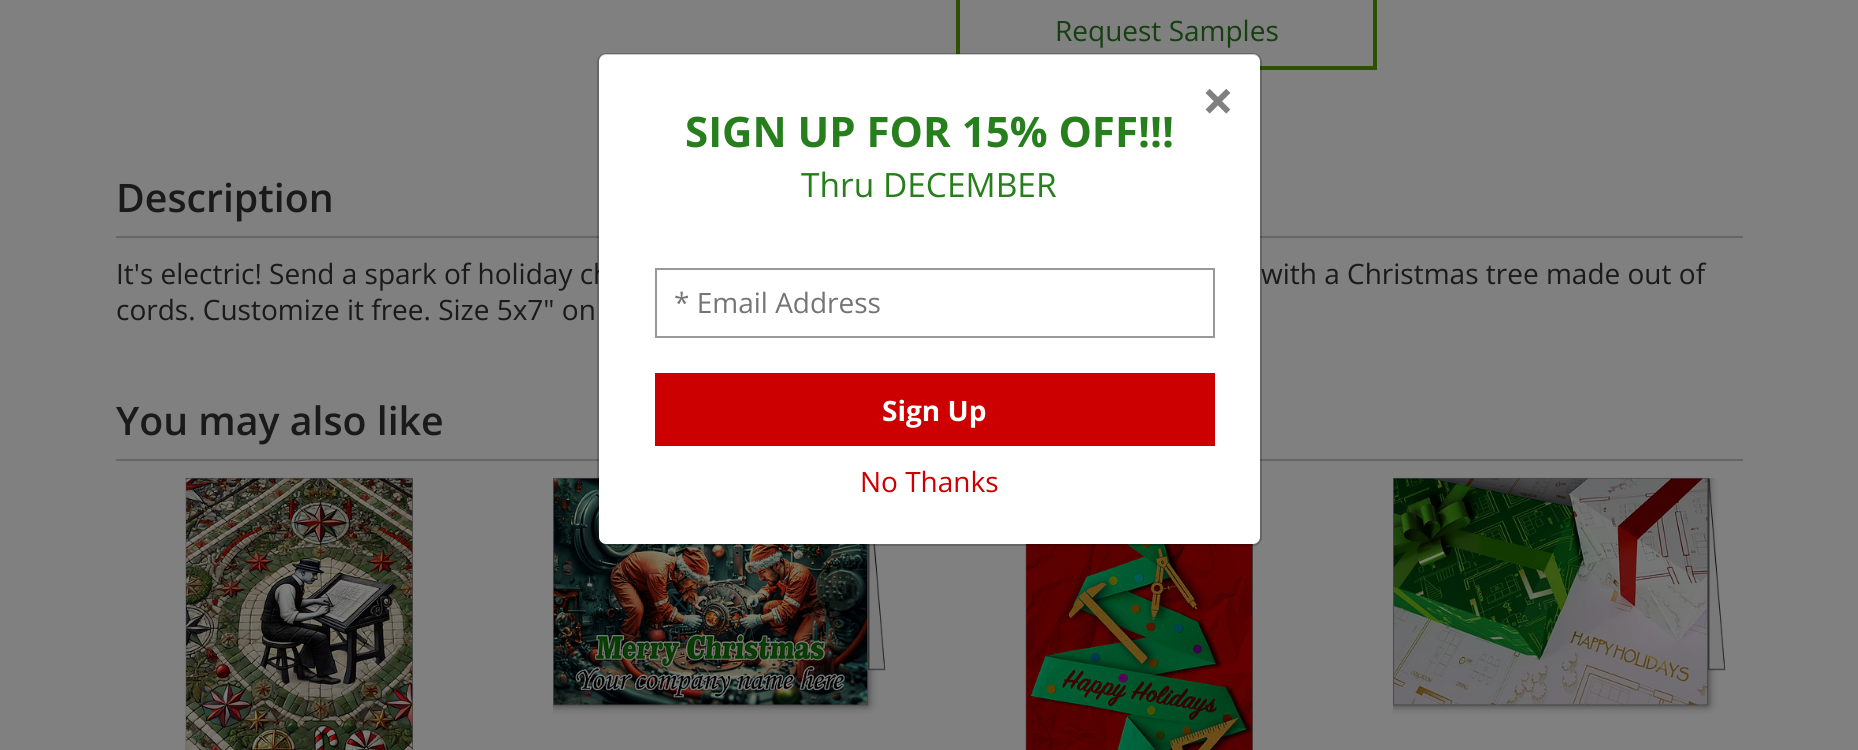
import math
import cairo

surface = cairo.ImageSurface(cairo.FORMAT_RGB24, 1858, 750)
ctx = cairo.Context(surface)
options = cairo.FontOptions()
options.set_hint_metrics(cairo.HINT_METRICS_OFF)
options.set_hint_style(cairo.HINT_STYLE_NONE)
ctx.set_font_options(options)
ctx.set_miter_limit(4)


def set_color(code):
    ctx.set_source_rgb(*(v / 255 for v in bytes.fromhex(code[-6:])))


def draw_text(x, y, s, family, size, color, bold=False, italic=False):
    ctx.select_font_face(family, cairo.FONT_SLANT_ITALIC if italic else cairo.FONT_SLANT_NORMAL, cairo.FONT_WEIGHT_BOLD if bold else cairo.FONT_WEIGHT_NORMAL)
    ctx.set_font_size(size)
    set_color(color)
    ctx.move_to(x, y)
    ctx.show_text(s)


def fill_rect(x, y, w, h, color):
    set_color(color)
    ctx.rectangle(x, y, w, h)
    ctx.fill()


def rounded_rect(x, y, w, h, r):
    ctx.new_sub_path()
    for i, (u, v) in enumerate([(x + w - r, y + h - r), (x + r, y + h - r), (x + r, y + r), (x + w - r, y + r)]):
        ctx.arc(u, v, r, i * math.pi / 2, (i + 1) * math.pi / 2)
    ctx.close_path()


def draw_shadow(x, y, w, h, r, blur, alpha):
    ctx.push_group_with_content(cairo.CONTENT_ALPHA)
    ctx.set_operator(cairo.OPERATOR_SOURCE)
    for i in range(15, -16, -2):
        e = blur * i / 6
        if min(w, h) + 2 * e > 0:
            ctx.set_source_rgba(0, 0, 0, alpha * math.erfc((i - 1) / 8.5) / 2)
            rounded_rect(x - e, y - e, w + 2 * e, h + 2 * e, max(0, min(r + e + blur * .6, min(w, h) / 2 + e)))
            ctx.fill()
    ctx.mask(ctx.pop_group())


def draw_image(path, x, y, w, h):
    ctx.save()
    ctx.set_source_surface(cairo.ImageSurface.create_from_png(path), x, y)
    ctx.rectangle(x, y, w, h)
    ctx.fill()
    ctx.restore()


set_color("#808080")
ctx.paint()
ctx.rectangle(958, -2, 417, 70)
set_color("#2b5101")
ctx.set_line_width(4)
ctx.stroke()
draw_text(1055, 41, "Request Samples", "Open Sans", 28, "#143f0f")
fill_rect(116, 236, 1627, 2, "#666666")
draw_text(116, 212, "Description", "Open Sans SemiBold", 39.25, "#1a1a1a")
draw_text(116, 284, "It's electric! Send a spark of holiday ch", "Open Sans", 28, "#1a1a1a")
draw_text(1261, 284, "with a Christmas tree made out of", "Open Sans", 28, "#1a1a1a")
draw_text(116, 320, "cords. Customize it free. Size 5x7\" on", "Open Sans", 28, "#1a1a1a")
fill_rect(116, 459, 1627, 2, "#666666")
draw_text(116, 435, "You may also like", "Open Sans SemiBold", 39.25, "#1a1a1a")
draw_image("assets/img1.png", 185, 477, 228, 273)
ctx.save()
ctx.rectangle(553, 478, 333, 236)
ctx.clip()
set_color("#333333")
draw_shadow(553, 478, 315, 227, 0, 4.5, 1)
ctx.restore()
draw_image("assets/img2.png", 553, 477, 315, 229)
draw_image("assets/img3.png", 868, 544, 18, 127)
draw_image("assets/img4.png", 1025, 544, 228, 206)
ctx.save()
ctx.rectangle(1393, 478, 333, 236)
ctx.clip()
set_color("#333333")
draw_shadow(1393, 478, 315, 227, 0, 4.5, 1)
ctx.restore()
draw_image("assets/img5.png", 1393, 477, 315, 229)
draw_image("assets/img6.png", 1708, 478, 18, 193)
set_color("#ffffff")
rounded_rect(599, 54, 661, 490, 7)
ctx.fill()
rounded_rect(598, 54, 663, 491, 8)
ctx.set_source_rgba(0, 0, 0, 0.2)
ctx.set_line_width(2)
ctx.stroke()
draw_text(1202, 121, "×", "Open Sans", 56, "#808080", bold=True)
draw_text(685, 147, "SIGN UP FOR 15% OFF!!!", "Open Sans", 42, "#277e1d", bold=True)
draw_text(801, 197, "Thru DECEMBER", "Open Sans", 33.5, "#277e1d")
ctx.rectangle(656, 269, 558, 68)
set_color("#999999")
ctx.stroke()
draw_text(674, 313, "* Email Address", "Open Sans", 28, "#757575")
fill_rect(655, 373, 560, 73, "#cc0000")
draw_text(882, 421, "Sign Up", "Open Sans", 28, "#ffffff", bold=True)
draw_text(860, 492, "No Thanks", "Open Sans", 28, "#cc0000")
surface.write_to_png("output.png")
